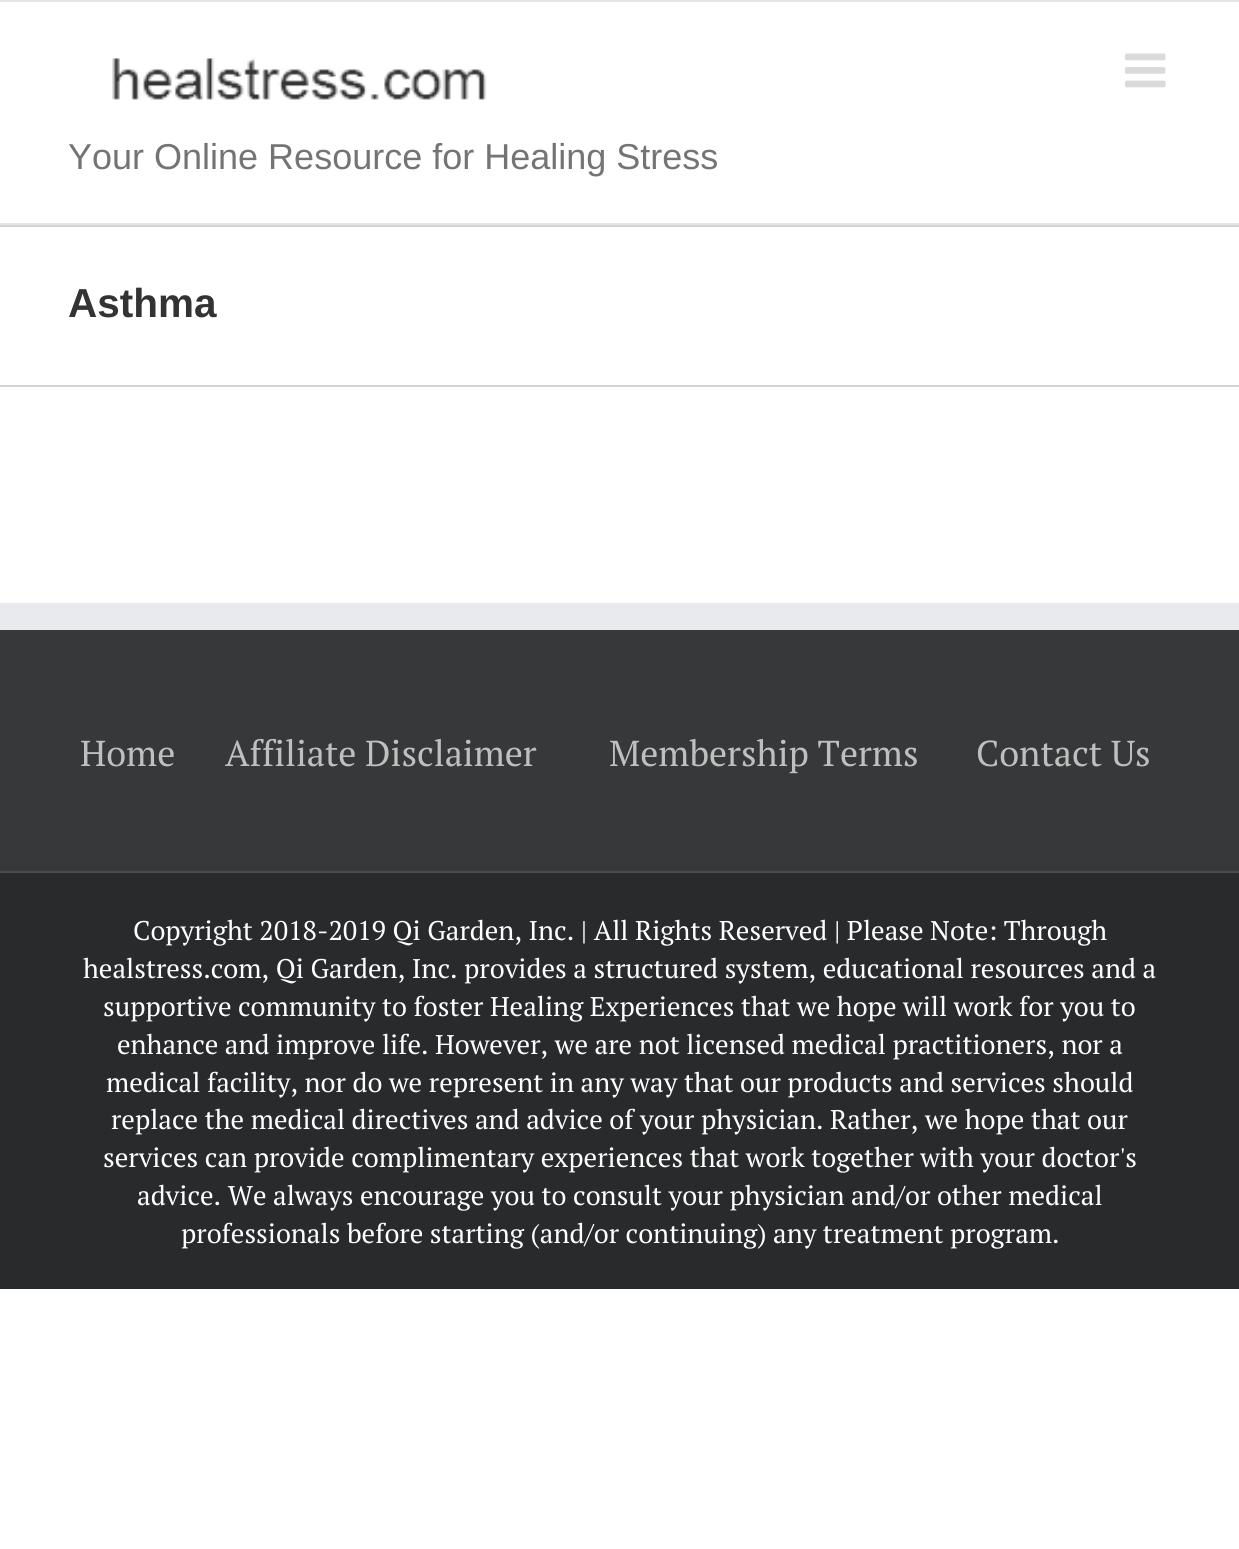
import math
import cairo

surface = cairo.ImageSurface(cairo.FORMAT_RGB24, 1239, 1549)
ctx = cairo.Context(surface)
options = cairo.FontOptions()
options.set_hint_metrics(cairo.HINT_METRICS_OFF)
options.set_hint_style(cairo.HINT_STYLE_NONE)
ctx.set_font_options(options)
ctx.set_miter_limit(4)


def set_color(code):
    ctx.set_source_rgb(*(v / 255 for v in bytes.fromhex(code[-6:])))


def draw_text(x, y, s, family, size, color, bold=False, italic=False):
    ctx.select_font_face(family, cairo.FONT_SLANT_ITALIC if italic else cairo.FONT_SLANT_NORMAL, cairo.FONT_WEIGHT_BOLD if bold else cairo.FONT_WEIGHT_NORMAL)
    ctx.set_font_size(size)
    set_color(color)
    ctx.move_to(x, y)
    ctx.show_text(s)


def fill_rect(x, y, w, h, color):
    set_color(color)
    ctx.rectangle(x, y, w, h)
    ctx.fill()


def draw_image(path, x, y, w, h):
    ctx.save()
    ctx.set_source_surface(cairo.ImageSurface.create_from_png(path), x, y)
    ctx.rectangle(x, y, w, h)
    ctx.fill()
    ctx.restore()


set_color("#ffffff")
ctx.paint()
fill_rect(0, 0, 1239, 2, "#e5e5e5")
fill_rect(0, 223, 1239, 2, "#e5e5e5")
draw_image("assets/img1.png", 1125, 53, 41, 35)
draw_image("assets/img2.png", 112, 58, 375, 42)
draw_text(68, 169, "Your Online Resource for Healing Stress", "Liberation Sans", 36, "#747474")
fill_rect(0, 225, 1239, 2, "#d2d3d4")
fill_rect(0, 385, 1239, 2, "#d2d3d4")
draw_text(68, 317, "Asthma", "Liberation Sans", 40.5, "#333333", bold=True)
fill_rect(0, 630, 1239, 241, "#363839")
fill_rect(0, 603, 1239, 27, "#e9eaee")
draw_text(80, 766, "Home", "PT Serif", 36, "#bfbfbf")
draw_text(225, 766, "Affiliate Disclaimer", "PT Serif", 36, "#bfbfbf")
draw_text(609, 766, "Membership Terms", "PT Serif", 36, "#bfbfbf")
draw_text(976, 766, "Contact Us", "PT Serif", 36, "#bfbfbf")
fill_rect(0, 873, 1239, 416, "#282a2b")
fill_rect(0, 871, 1239, 2, "#4b4c4d")
draw_text(133, 940, "Copyright 2018-2019 Qi Garden, Inc. | All Rights Reserved | Please Note: Through", "PT Serif", 27, "#ffffff")
draw_text(83, 978, "healstress.com, Qi Garden, Inc. provides a structured system, educational resources and a", "PT Serif", 27, "#ffffff")
draw_text(103, 1016, "supportive community to foster Healing Experiences that we hope will work for you to", "PT Serif", 27, "#ffffff")
draw_text(117, 1054, "enhance and improve life. However, we are not licensed medical practitioners, nor a", "PT Serif", 27, "#ffffff")
draw_text(106, 1092, "medical facility, nor do we represent in any way that our products and services should", "PT Serif", 27, "#ffffff")
draw_text(111, 1129, "replace the medical directives and advice of your physician. Rather, we hope that our", "PT Serif", 27, "#ffffff")
draw_text(103, 1167, "services can provide complimentary experiences that work together with your doctor's", "PT Serif", 27, "#ffffff")
draw_text(137, 1205, "advice. We always encourage you to consult your physician and/or other medical", "PT Serif", 27, "#ffffff")
draw_text(181, 1243, "professionals before starting (and/or continuing) any treatment program.", "PT Serif", 27, "#ffffff")
surface.write_to_png("output.png")
